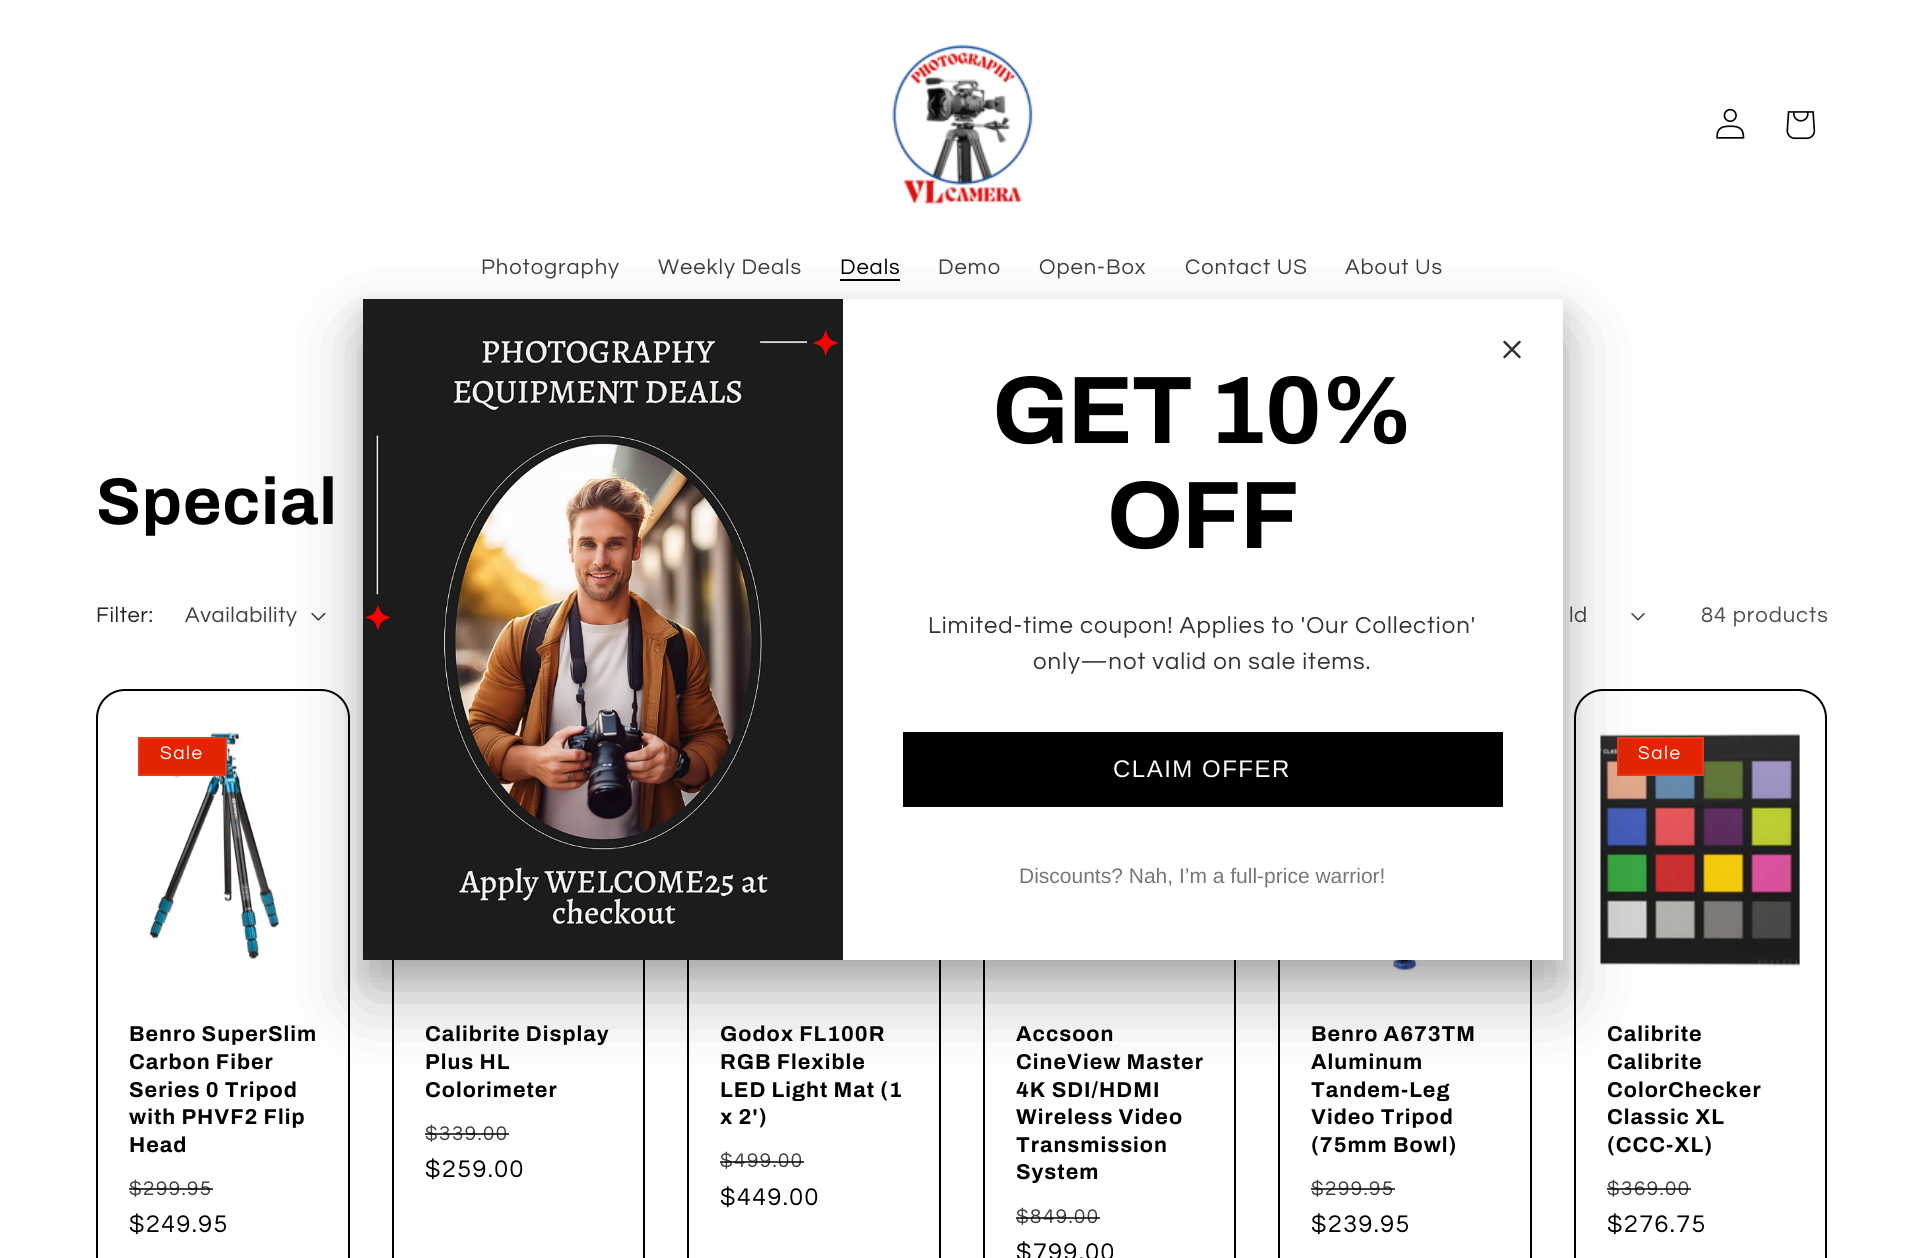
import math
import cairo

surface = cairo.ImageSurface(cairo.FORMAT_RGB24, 1924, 1258)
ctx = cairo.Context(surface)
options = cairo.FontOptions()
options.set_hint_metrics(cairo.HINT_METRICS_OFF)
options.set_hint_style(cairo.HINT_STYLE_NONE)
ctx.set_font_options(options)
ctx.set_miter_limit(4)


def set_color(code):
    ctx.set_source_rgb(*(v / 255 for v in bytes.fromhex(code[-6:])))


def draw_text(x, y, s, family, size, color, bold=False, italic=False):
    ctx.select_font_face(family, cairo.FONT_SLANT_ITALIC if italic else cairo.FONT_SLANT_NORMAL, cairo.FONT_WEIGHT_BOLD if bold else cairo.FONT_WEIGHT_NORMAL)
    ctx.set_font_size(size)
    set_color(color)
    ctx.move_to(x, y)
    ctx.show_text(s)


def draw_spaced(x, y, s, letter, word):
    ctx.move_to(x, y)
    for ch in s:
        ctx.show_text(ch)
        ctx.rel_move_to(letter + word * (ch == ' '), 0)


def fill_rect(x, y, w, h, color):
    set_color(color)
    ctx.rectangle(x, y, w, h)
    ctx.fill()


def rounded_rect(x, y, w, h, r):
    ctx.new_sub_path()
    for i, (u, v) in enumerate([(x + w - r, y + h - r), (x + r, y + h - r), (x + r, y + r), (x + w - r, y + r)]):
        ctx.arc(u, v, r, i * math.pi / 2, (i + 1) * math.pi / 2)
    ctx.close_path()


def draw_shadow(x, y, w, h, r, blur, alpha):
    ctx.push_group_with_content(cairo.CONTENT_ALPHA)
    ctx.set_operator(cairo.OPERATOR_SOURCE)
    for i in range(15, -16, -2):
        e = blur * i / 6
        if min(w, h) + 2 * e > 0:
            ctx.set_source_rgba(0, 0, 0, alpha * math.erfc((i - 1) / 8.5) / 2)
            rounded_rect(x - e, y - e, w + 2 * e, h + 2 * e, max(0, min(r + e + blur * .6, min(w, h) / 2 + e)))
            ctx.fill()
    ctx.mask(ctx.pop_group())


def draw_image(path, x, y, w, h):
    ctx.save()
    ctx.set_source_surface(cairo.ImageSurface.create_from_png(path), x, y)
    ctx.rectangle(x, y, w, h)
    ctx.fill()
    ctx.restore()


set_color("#ffffff")
ctx.paint()
draw_image("assets/img1.png", 892, 44, 141, 161)
draw_image("assets/img2.png", 1716, 108, 29, 31)
draw_image("assets/img3.png", 1786, 111, 30, 29)
ctx.select_font_face("Questrial")
ctx.set_font_size(22)
set_color("#404040")
draw_spaced(481, 274, "Photography", 0.95, 0)
draw_spaced(658, 274, "Weekly Deals", 0.95, 0)
set_color("#000000")
draw_spaced(840, 274, "Deals", 0.95, 0)
fill_rect(840, 279, 60, 2, "#000000")
set_color("#404040")
draw_spaced(938, 274, "Demo", 0.95, 0)
draw_spaced(1039, 274, "Open-Box", 0.95, 0)
draw_spaced(1185, 274, "Contact US", 0.95, 0)
draw_spaced(1345, 274, "About Us", 0.95, 0)
draw_image("assets/img5.png", 311, 612, 15, 9)
rounded_rect(97, 690, 252, 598, 28)
set_color("#000000")
ctx.stroke()
ctx.rectangle(393, 690, 251, 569)
ctx.stroke()
ctx.rectangle(688, 690, 252, 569)
ctx.stroke()
ctx.rectangle(984, 690, 251, 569)
ctx.stroke()
ctx.rectangle(1279, 690, 252, 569)
ctx.stroke()
draw_image("assets/img8.png", 1311, 960, 194, 12)
rounded_rect(1575, 690, 251, 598, 28)
ctx.stroke()
draw_image("assets/img9.png", 1600, 733, 200, 233)
set_color("#000000")
draw_shadow(363, 314, 1200, 661, 0, 15, 0.15)
draw_image("assets/img6.png", 1631, 613, 14, 8)
draw_image("assets/img7.png", 126, 732, 153, 244)
set_color("#e32402")
ctx.rectangle(1618, 738, 85, 37)
ctx.fill_preserve()
set_color("#e63a1b")
ctx.stroke()
set_color("#000000")
draw_shadow(363, 336, 1200, 662, 0, 37.5, 0.25)
fill_rect(843, 299, 720, 661, "#ffffff")
ctx.new_path()
ctx.move_to(1519.5, 342)
ctx.line_to(1504.5, 357)
ctx.move_to(1504.5, 342)
ctx.line_to(1519.5, 357)
set_color("#333333")
ctx.set_line_width(2.5)
ctx.set_line_cap(cairo.LINE_CAP_ROUND)
ctx.set_line_join(cairo.LINE_JOIN_ROUND)
ctx.stroke()
draw_image("assets/img4.png", 363, 299, 480, 661)
ctx.select_font_face("Archivo", cairo.FONT_SLANT_NORMAL, cairo.FONT_WEIGHT_BOLD)
ctx.set_font_size(96)
set_color("#000000")
draw_spaced(992, 443, "GET 10%", -1.5, 0)
draw_spaced(1107, 548, "OFF", -1.5, 0)
ctx.select_font_face("Questrial")
ctx.set_font_size(24)
set_color("#333333")
draw_spaced(928, 633, "Limited-time coupon! Applies to 'Our Collection'", 0.95, 0)
draw_spaced(1033, 669, "only—not valid on sale items.", 0.95, 0)
fill_rect(903, 732, 600, 75, "#000000")
ctx.select_font_face("Liberation Sans")
set_color("#ffffff")
draw_spaced(1113, 777, "CLAIM OFFER", 1.5, 0)
draw_text(1019, 883, "Discounts? Nah, I’m a full-price warrior!", "Liberation Sans", 21, "#777777")
ctx.select_font_face("Archivo", cairo.FONT_SLANT_NORMAL, cairo.FONT_WEIGHT_BOLD)
ctx.set_font_size(66)
set_color("#000000")
draw_spaced(96, 524, "Special", 1, 0)
ctx.select_font_face("Questrial")
ctx.set_font_size(22)
set_color("#262626")
draw_spaced(96, 622, "Filter:", 0.6, 0)
set_color("#404040")
draw_spaced(185, 622, "Availability", 0.6, 0)
draw_spaced(1569, 622, "ld", 0.6, 0)
set_color("#4d4d4d")
draw_spaced(1701, 622, "84 products", 0.95, 0)
set_color("#e32402")
ctx.rectangle(139, 738, 87, 37)
ctx.fill_preserve()
set_color("#e63a1b")
ctx.set_line_width(2)
ctx.set_line_cap(cairo.LINE_CAP_BUTT)
ctx.set_line_join(cairo.LINE_JOIN_MITER)
ctx.stroke()
ctx.set_font_size(19)
set_color("#ffffff")
draw_spaced(160, 759, "Sale", 1.5, 0)
ctx.select_font_face("Archivo", cairo.FONT_SLANT_NORMAL, cairo.FONT_WEIGHT_BOLD)
ctx.set_font_size(21.5)
set_color("#000000")
draw_spaced(129, 1041, "Benro SuperSlim", 1, 0)
draw_spaced(129, 1069, "Carbon Fiber", 1, 0)
draw_spaced(129, 1097, "Series 0 Tripod", 1, 0)
draw_spaced(129, 1124, "with PHVF2 Flip", 1, 0)
draw_spaced(129, 1152, "Head", 1, 0)
ctx.select_font_face("Questrial")
ctx.set_font_size(20.5)
set_color("#404040")
draw_spaced(129, 1195, "$299.95", 1.5, 0)
ctx.set_source_rgba(0, 0, 0, 0.75)
ctx.rectangle(129, 1188, 84, 2)
ctx.fill()
ctx.set_font_size(25)
set_color("#000000")
draw_spaced(129, 1232, "$249.95", 1.5, 0)
ctx.select_font_face("Archivo", cairo.FONT_SLANT_NORMAL, cairo.FONT_WEIGHT_BOLD)
ctx.set_font_size(21.5)
draw_spaced(425, 1041, "Calibrite Display", 1, 0)
draw_spaced(425, 1069, "Plus HL", 1, 0)
draw_spaced(425, 1097, "Colorimeter", 1, 0)
ctx.select_font_face("Questrial")
ctx.set_font_size(20.5)
set_color("#404040")
draw_spaced(425, 1140, "$339.00", 1.5, 0)
ctx.set_source_rgba(0, 0, 0, 0.75)
ctx.rectangle(425, 1133, 84, 2)
ctx.fill()
ctx.set_font_size(25)
set_color("#000000")
draw_spaced(425, 1177, "$259.00", 1.5, 0)
ctx.select_font_face("Archivo", cairo.FONT_SLANT_NORMAL, cairo.FONT_WEIGHT_BOLD)
ctx.set_font_size(21.5)
draw_spaced(720, 1041, "Godox FL100R", 1, 0)
draw_spaced(720, 1069, "RGB Flexible", 1, 0)
draw_spaced(720, 1097, "LED Light Mat (1", 1, 0)
draw_spaced(720, 1124, "x 2')", 1, 0)
ctx.select_font_face("Questrial")
ctx.set_font_size(20.5)
set_color("#404040")
draw_spaced(720, 1167, "$499.00", 1.5, 0)
ctx.set_source_rgba(0, 0, 0, 0.75)
ctx.rectangle(720, 1161, 84, 2)
ctx.fill()
ctx.set_font_size(25)
set_color("#000000")
draw_spaced(720, 1205, "$449.00", 1.5, 0)
ctx.select_font_face("Archivo", cairo.FONT_SLANT_NORMAL, cairo.FONT_WEIGHT_BOLD)
ctx.set_font_size(21.5)
draw_spaced(1016, 1041, "Accsoon", 1, 0)
draw_spaced(1016, 1069, "CineView Master", 1, 0)
draw_spaced(1016, 1097, "4K SDI/HDMI", 1, 0)
draw_spaced(1016, 1124, "Wireless Video", 1, 0)
draw_spaced(1016, 1152, "Transmission", 1, 0)
draw_spaced(1016, 1179, "System", 1, 0)
ctx.select_font_face("Questrial")
ctx.set_font_size(20.5)
set_color("#404040")
draw_spaced(1016, 1223, "$849.00", 1.5, 0)
ctx.set_source_rgba(0, 0, 0, 0.75)
ctx.rectangle(1016, 1217, 84, 2)
ctx.fill()
ctx.set_font_size(25)
set_color("#000000")
draw_spaced(1016, 1260, "$799.00", 1.5, 0)
ctx.select_font_face("Archivo", cairo.FONT_SLANT_NORMAL, cairo.FONT_WEIGHT_BOLD)
ctx.set_font_size(21.5)
draw_spaced(1311, 1041, "Benro A673TM", 1, 0)
draw_spaced(1311, 1069, "Aluminum", 1, 0)
draw_spaced(1311, 1097, "Tandem-Leg", 1, 0)
draw_spaced(1311, 1124, "Video Tripod", 1, 0)
draw_spaced(1311, 1152, "(75mm Bowl)", 1, 0)
ctx.select_font_face("Questrial")
ctx.set_font_size(20.5)
set_color("#404040")
draw_spaced(1311, 1195, "$299.95", 1.5, 0)
ctx.set_source_rgba(0, 0, 0, 0.75)
ctx.rectangle(1311, 1188, 84, 2)
ctx.fill()
ctx.set_font_size(25)
set_color("#000000")
draw_spaced(1311, 1232, "$239.95", 1.5, 0)
ctx.set_font_size(19)
set_color("#ffffff")
draw_spaced(1638, 759, "Sale", 1.5, 0)
ctx.select_font_face("Archivo", cairo.FONT_SLANT_NORMAL, cairo.FONT_WEIGHT_BOLD)
ctx.set_font_size(21.5)
set_color("#000000")
draw_spaced(1607, 1041, "Calibrite", 1, 0)
draw_spaced(1607, 1069, "Calibrite", 1, 0)
draw_spaced(1607, 1097, "ColorChecker", 1, 0)
draw_spaced(1607, 1124, "Classic XL", 1, 0)
draw_spaced(1607, 1152, "(CCC-XL)", 1, 0)
ctx.select_font_face("Questrial")
ctx.set_font_size(20.5)
set_color("#404040")
draw_spaced(1607, 1195, "$369.00", 1.5, 0)
ctx.set_source_rgba(0, 0, 0, 0.75)
ctx.rectangle(1607, 1188, 84, 2)
ctx.fill()
ctx.set_font_size(25)
set_color("#000000")
draw_spaced(1607, 1232, "$276.75", 1.5, 0)
surface.write_to_png("output.png")
